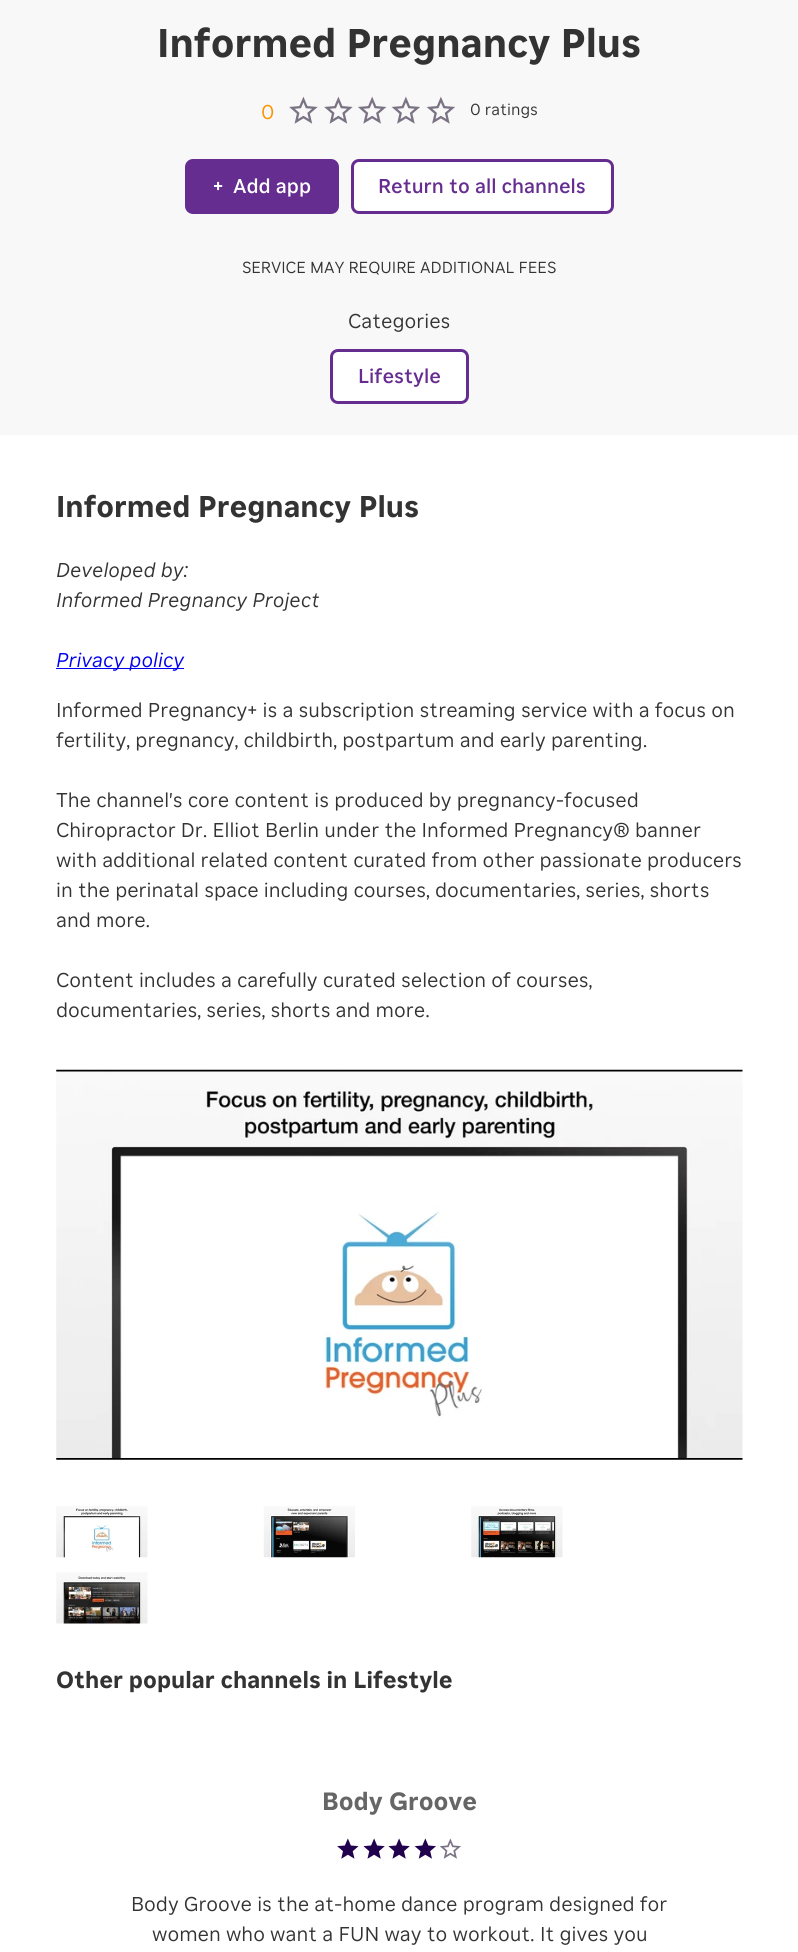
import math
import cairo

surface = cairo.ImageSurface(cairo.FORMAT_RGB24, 798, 1952)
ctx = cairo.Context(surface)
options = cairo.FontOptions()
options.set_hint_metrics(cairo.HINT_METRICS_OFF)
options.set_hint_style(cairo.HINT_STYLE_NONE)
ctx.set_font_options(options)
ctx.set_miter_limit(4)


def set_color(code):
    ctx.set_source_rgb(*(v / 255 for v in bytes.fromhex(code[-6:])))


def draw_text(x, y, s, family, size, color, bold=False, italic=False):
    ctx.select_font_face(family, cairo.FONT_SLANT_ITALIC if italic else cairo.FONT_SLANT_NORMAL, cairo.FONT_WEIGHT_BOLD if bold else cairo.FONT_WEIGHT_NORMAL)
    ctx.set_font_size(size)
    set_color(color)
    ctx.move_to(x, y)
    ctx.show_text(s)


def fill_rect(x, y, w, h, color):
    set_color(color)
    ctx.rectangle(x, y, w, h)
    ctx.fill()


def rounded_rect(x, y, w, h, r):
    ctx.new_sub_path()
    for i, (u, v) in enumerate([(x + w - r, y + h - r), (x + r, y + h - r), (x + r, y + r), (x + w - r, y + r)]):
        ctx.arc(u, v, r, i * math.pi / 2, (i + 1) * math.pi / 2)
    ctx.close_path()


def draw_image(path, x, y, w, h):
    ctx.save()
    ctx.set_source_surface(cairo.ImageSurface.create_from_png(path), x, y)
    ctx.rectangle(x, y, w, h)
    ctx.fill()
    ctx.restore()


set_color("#ffffff")
ctx.paint()
fill_rect(0, 0, 798, 435, "#f8f8f8")
draw_text(157, 57, "Informed Pregnancy Plus", "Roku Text", 40, "#333333", bold=True)
draw_text(261, 119, "0", "Roku Text", 20, "#ff9000")
draw_image("assets/img1.png", 289, 96, 29, 28)
draw_image("assets/img1.png", 324, 96, 29, 28)
draw_image("assets/img2.png", 358, 96, 29, 28)
draw_image("assets/img3.png", 391, 96, 29, 28)
draw_image("assets/img3.png", 426, 96, 29, 28)
draw_text(470, 115, "0 ratings", "Roku Text", 16, "#333333")
set_color("#662d91")
rounded_rect(186.5, 160.5, 151, 52, 6.5)
ctx.fill_preserve()
ctx.set_line_width(3)
ctx.stroke()
draw_text(213, 193, "+", "Roku Text Medium", 20, "#ffffff")
draw_text(233, 193, "Add app", "Roku Text Medium", 20, "#ffffff")
rounded_rect(352.5, 160.5, 260, 52, 6.5)
ctx.fill_preserve()
set_color("#662d91")
ctx.stroke()
draw_text(378, 193, "Return to all channels", "Roku Text Medium", 20, "#662d91")
draw_text(242, 273, "SERVICE MAY REQUIRE ADDITIONAL FEES", "Roku Text", 16, "#333333")
draw_text(348, 328, "Categories", "Roku Text", 20, "#333333")
set_color("#ffffff")
rounded_rect(331.5, 350.5, 136, 52, 6.5)
ctx.fill_preserve()
set_color("#662d91")
ctx.stroke()
draw_text(358, 383, "Lifestyle", "Roku Text Medium", 20, "#662d91")
draw_text(56, 517, "Informed Pregnancy Plus", "Roku Text", 30, "#333333", bold=True)
draw_text(56, 577, "Developed by:", "Roku Text", 20, "#333333", italic=True)
draw_text(56, 607, "Informed Pregnancy Project", "Roku Text", 20, "#333333", italic=True)
fill_rect(56, 668, 128, 1, "#0000ee")
draw_text(56, 667, "Privacy policy", "Roku Text", 20, "#0000ee", italic=True)
draw_text(56, 717, "Informed Pregnancy+ is a subscription streaming service with a focus on", "Roku Text", 20, "#333333")
draw_text(56, 747, "fertility, pregnancy, childbirth, postpartum and early parenting.", "Roku Text", 20, "#333333")
draw_text(56, 807, "The channel's core content is produced by pregnancy-focused", "Roku Text", 20, "#333333")
draw_text(56, 837, "Chiropractor Dr. Elliot Berlin under the Informed Pregnancy® banner", "Roku Text", 20, "#333333")
draw_text(56, 867, "with additional related content curated from other passionate producers", "Roku Text", 20, "#333333")
draw_text(56, 897, "in the perinatal space including courses, documentaries, series, shorts", "Roku Text", 20, "#333333")
draw_text(56, 927, "and more.", "Roku Text", 20, "#333333")
draw_text(56, 987, "Content includes a carefully curated selection of courses,", "Roku Text", 20, "#333333")
draw_text(56, 1017, "documentaries, series, shorts and more.", "Roku Text", 20, "#333333")
draw_image("assets/img4.png", 56, 1069, 687, 391)
draw_image("assets/img5.png", 56, 1506, 92, 52)
draw_image("assets/img6.png", 263, 1506, 92, 52)
draw_image("assets/img7.png", 471, 1506, 92, 52)
draw_image("assets/img8.png", 56, 1572, 92, 52)
draw_text(56, 1688, "Other popular channels in Lifestyle", "Roku Text", 23.4, "#333333", bold=True)
draw_text(322, 1810, "Body Groove", "Roku Text", 25, "#666666", bold=True)
draw_image("assets/img9.png", 337, 1838, 22, 21)
draw_image("assets/img10.png", 363, 1838, 22, 21)
draw_image("assets/img10.png", 388, 1838, 22, 21)
draw_image("assets/img11.png", 414, 1838, 22, 21)
draw_image("assets/img12.png", 439, 1838, 22, 21)
draw_text(131, 1911, "Body Groove is the at-home dance program designed for", "Roku Text", 20, "#333333")
draw_text(152, 1941, "women who want a FUN way to workout. It gives you", "Roku Text", 20, "#333333")
surface.write_to_png("output.png")
